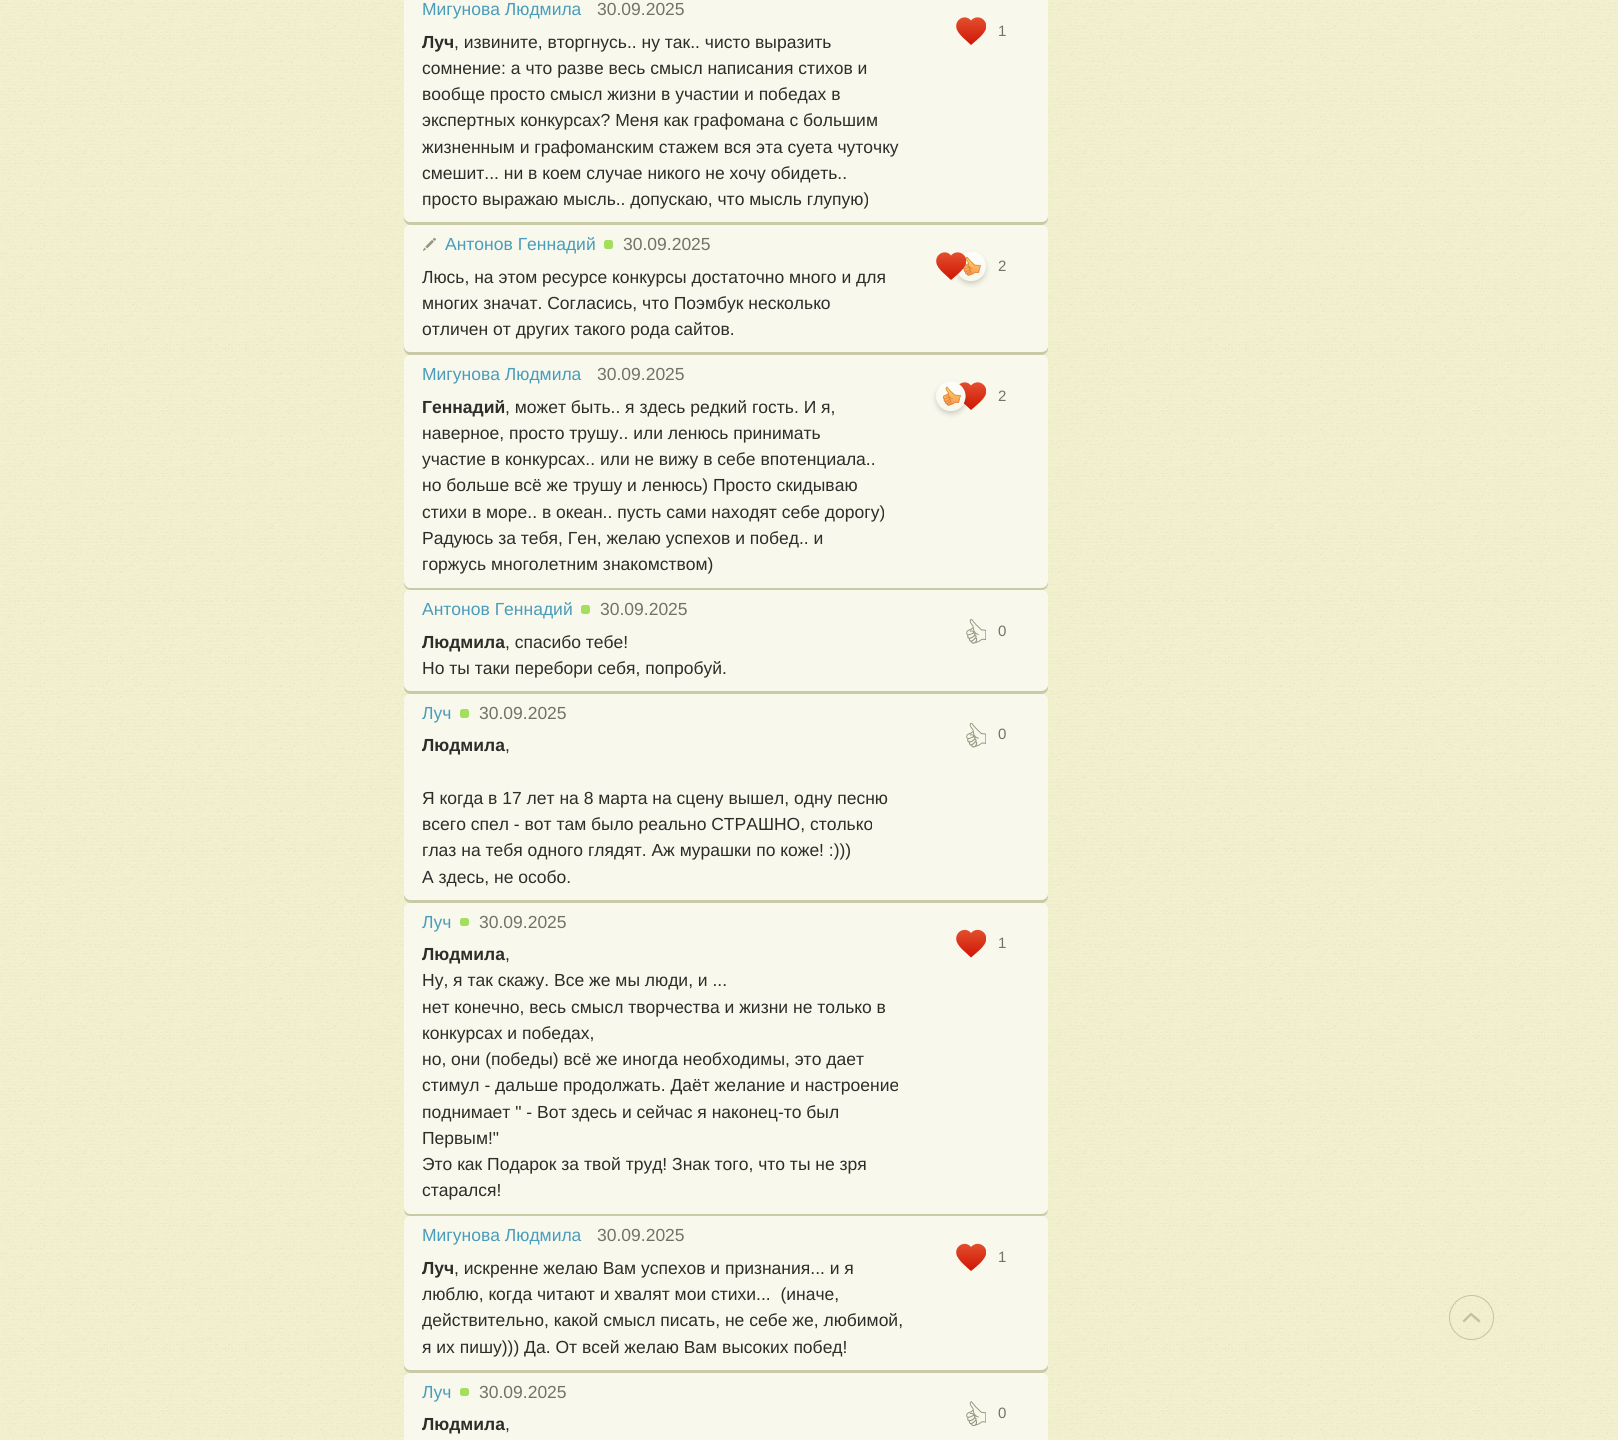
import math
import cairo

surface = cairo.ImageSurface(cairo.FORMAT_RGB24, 1618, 1440)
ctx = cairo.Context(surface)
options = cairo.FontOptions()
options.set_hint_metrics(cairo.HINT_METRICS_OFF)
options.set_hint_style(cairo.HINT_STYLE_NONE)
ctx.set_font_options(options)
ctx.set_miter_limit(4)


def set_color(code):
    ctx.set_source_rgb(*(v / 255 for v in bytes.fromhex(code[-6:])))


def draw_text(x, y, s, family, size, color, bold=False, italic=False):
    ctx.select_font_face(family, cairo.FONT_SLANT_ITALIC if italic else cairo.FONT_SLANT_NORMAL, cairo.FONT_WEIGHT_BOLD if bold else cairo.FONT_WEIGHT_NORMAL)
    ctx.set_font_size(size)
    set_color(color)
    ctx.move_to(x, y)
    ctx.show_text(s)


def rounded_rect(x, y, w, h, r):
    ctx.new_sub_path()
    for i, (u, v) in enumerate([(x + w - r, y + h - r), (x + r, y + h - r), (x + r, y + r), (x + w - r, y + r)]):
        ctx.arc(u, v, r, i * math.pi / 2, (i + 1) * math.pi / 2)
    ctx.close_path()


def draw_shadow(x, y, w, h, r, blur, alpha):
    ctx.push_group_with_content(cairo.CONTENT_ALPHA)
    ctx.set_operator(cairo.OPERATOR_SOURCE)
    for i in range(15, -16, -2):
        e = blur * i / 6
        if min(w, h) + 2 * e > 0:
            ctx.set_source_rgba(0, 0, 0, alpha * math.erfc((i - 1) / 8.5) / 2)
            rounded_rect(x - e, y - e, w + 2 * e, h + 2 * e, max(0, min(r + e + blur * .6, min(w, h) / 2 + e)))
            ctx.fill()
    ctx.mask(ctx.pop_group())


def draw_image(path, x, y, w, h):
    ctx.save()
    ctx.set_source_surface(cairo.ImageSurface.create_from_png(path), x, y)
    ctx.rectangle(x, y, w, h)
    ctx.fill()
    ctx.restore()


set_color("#ffffff")
ctx.paint()
draw_image("assets/img1.png", 0, 0, 1618, 1440)
set_color("#f8f8ed")
rounded_rect(404, -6, 644, 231, 6)
ctx.fill()
set_color("#cacaa7")
ctx.new_path()
ctx.move_to(404, 216)
ctx.line_to(404, 219)
ctx.curve_to(404, 222, 407, 225, 410, 225)
ctx.line_to(1042, 225)
ctx.curve_to(1045, 225, 1048, 222, 1048, 219)
ctx.line_to(1048, 216)
ctx.curve_to(1048, 220, 1045, 222, 1041, 222)
ctx.line_to(410, 222)
ctx.curve_to(407, 222, 404, 220, 404, 216)
ctx.close_path()
ctx.fill()
draw_text(422, 15, "Мигунова Людмила", "Liberation Sans", 17.5, "#499cba")
draw_text(597, 15, "30.09.2025", "Liberation Sans", 17.5, "#737365")
draw_text(422, 48, "Луч", "Liberation Sans", 17.5, "#2d2d29", bold=True)
draw_text(454, 48, ", извините, вторгнусь.. ну так.. чисто выразить", "Liberation Sans", 17.5, "#2d2d29")
draw_text(422, 74, "сомнение: а что разве весь смысл написания стихов и", "Liberation Sans", 17.5, "#2d2d29")
draw_text(422, 100, "вообще просто смысл жизни в участии и победах в", "Liberation Sans", 17.5, "#2d2d29")
draw_text(422, 126, "экспертных конкурсах? Меня как графомана с большим", "Liberation Sans", 17.5, "#2d2d29")
draw_text(422, 153, "жизненным и графоманским стажем вся эта суета чуточку", "Liberation Sans", 17.5, "#2d2d29")
draw_text(422, 179, "смешит... ни в коем случае никого не хочу обидеть..", "Liberation Sans", 17.5, "#2d2d29")
draw_text(422, 205, "просто выражаю мысль.. допускаю, что мысль глупую)", "Liberation Sans", 17.5, "#2d2d29")
ctx.save()
ctx.rectangle(956, 16, 30, 30)
ctx.clip()
gradient = cairo.LinearGradient(986, 45, 986, 18)
gradient.add_color_stop_rgba(0, 0.812, 0.082, 0.016, 1)
gradient.add_color_stop_rgba(1, 0.886, 0.306, 0.176, 1)
ctx.set_source(gradient)
ctx.set_fill_rule(cairo.FILL_RULE_EVEN_ODD)
ctx.new_path()
ctx.move_to(971, 45)
ctx.curve_to(966.5, 40.5, 960, 36, 957, 30)
ctx.curve_to(953, 20, 965, 13, 971, 20.5)
ctx.curve_to(977.5, 13, 989.5, 20, 985.5, 30)
ctx.curve_to(982.5, 36, 976, 40.5, 971, 45)
ctx.close_path()
ctx.fill()
ctx.restore()
draw_text(998, 36, "1", "Liberation Sans", 15, "#737365")
set_color("#f8f8ed")
rounded_rect(404, 225, 644, 130, 6)
ctx.fill()
set_color("#cacaa7")
ctx.new_path()
ctx.move_to(404, 346)
ctx.line_to(404, 349)
ctx.curve_to(404, 352, 407, 355, 410, 355)
ctx.line_to(1042, 355)
ctx.curve_to(1045, 355, 1048, 352, 1048, 349)
ctx.line_to(1048, 346)
ctx.curve_to(1048, 350, 1045, 352, 1041, 352)
ctx.line_to(410, 352)
ctx.curve_to(407, 352, 404, 350, 404, 346)
ctx.close_path()
ctx.fill()
draw_image("assets/img2.png", 423, 238, 13, 13)
draw_text(445, 250, "Антонов Геннадий", "Liberation Sans", 17.5, "#499cba")
set_color("#a3de5d")
rounded_rect(604, 240, 9, 9, 2.5)
ctx.fill()
draw_text(623, 250, "30.09.2025", "Liberation Sans", 17.5, "#737365")
draw_text(422, 283, "Люсь, на этом ресурсе конкурсы достаточно много и для", "Liberation Sans", 17.5, "#2d2d29")
draw_text(422, 309, "многих значат. Согласись, что Поэмбук несколько", "Liberation Sans", 17.5, "#2d2d29")
draw_text(422, 335, "отличен от других такого рода сайтов.", "Liberation Sans", 17.5, "#2d2d29")
ctx.save()
ctx.set_fill_rule(cairo.FILL_RULE_EVEN_ODD)
ctx.new_path()
ctx.move_to(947, 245)
ctx.line_to(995, 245)
ctx.line_to(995, 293)
ctx.line_to(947, 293)
ctx.close_path()
ctx.move_to(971, 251)
ctx.curve_to(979.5, 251, 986, 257.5, 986, 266)
ctx.curve_to(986, 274.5, 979.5, 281, 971, 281)
ctx.curve_to(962.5, 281, 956, 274.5, 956, 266)
ctx.curve_to(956, 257.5, 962.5, 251, 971, 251)
ctx.close_path()
ctx.clip()
set_color("#2d2d29")
draw_shadow(956, 254, 30, 30, 15, 2.5, 0.2)
ctx.restore()
draw_image("assets/img3.png", 958, 252, 28, 24)
ctx.save()
ctx.rectangle(936, 251, 30, 30)
ctx.clip()
gradient = cairo.LinearGradient(966, 280, 966, 253)
gradient.add_color_stop_rgba(0, 0.812, 0.082, 0.016, 1)
gradient.add_color_stop_rgba(1, 0.886, 0.306, 0.176, 1)
ctx.set_source(gradient)
ctx.set_fill_rule(cairo.FILL_RULE_EVEN_ODD)
ctx.new_path()
ctx.move_to(951, 280)
ctx.curve_to(946.5, 275.5, 940, 271, 937, 265)
ctx.curve_to(933, 255, 945, 248, 951, 255.5)
ctx.curve_to(957.5, 248, 969.5, 255, 965.5, 265)
ctx.curve_to(962.5, 271, 956, 275.5, 951, 280)
ctx.close_path()
ctx.fill()
ctx.restore()
draw_text(998, 271, "2", "Liberation Sans", 15, "#737365")
set_color("#f8f8ed")
rounded_rect(404, 355, 644, 235, 6)
ctx.fill()
set_color("#cacaa7")
ctx.new_path()
ctx.move_to(404, 581)
ctx.line_to(404, 584)
ctx.curve_to(404, 587, 407, 590, 410, 590)
ctx.line_to(1042, 590)
ctx.curve_to(1045, 590, 1048, 587, 1048, 584)
ctx.line_to(1048, 581)
ctx.curve_to(1048, 585, 1045, 588, 1041, 588)
ctx.line_to(410, 588)
ctx.curve_to(407, 588, 404, 585, 404, 581)
ctx.close_path()
ctx.fill()
draw_text(422, 380, "Мигунова Людмила", "Liberation Sans", 17.5, "#499cba")
draw_text(597, 380, "30.09.2025", "Liberation Sans", 17.5, "#737365")
draw_text(422, 413, "Геннадий", "Liberation Sans", 17.5, "#2d2d29", bold=True)
draw_text(505, 413, ", может быть.. я здесь редкий гость. И я,", "Liberation Sans", 17.5, "#2d2d29")
draw_text(422, 439, "наверное, просто трушу.. или ленюсь принимать", "Liberation Sans", 17.5, "#2d2d29")
draw_text(422, 465, "участие в конкурсах.. или не вижу в себе впотенциала..", "Liberation Sans", 17.5, "#2d2d29")
draw_text(422, 491, "но больше всё же трушу и ленюсь) Просто скидываю", "Liberation Sans", 17.5, "#2d2d29")
draw_text(422, 518, "стихи в море.. в океан.. пусть сами находят себе дорогу)", "Liberation Sans", 17.5, "#2d2d29")
draw_text(422, 544, "Радуюсь за тебя, Ген, желаю успехов и побед.. и", "Liberation Sans", 17.5, "#2d2d29")
draw_text(422, 570, "горжусь многолетним знакомством)", "Liberation Sans", 17.5, "#2d2d29")
ctx.save()
ctx.rectangle(956, 381, 30, 30)
ctx.clip()
gradient = cairo.LinearGradient(986, 410, 986, 383)
gradient.add_color_stop_rgba(0, 0.812, 0.082, 0.016, 1)
gradient.add_color_stop_rgba(1, 0.886, 0.306, 0.176, 1)
ctx.set_source(gradient)
ctx.set_fill_rule(cairo.FILL_RULE_EVEN_ODD)
ctx.new_path()
ctx.move_to(971, 410)
ctx.curve_to(966.5, 405.5, 960, 401, 957, 395)
ctx.curve_to(953, 385, 965, 378, 971, 385.5)
ctx.curve_to(977.5, 378, 989.5, 385, 985.5, 395)
ctx.curve_to(982.5, 401, 976, 405.5, 971, 410)
ctx.close_path()
ctx.fill()
ctx.restore()
ctx.save()
ctx.set_fill_rule(cairo.FILL_RULE_EVEN_ODD)
ctx.new_path()
ctx.move_to(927, 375)
ctx.line_to(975, 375)
ctx.line_to(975, 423)
ctx.line_to(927, 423)
ctx.close_path()
ctx.move_to(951, 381)
ctx.curve_to(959.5, 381, 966, 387.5, 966, 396)
ctx.curve_to(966, 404.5, 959.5, 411, 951, 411)
ctx.curve_to(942.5, 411, 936, 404.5, 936, 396)
ctx.curve_to(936, 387.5, 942.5, 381, 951, 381)
ctx.close_path()
ctx.clip()
set_color("#2d2d29")
draw_shadow(936, 384, 30, 30, 15, 2.5, 0.2)
ctx.restore()
draw_image("assets/img4.png", 937, 382, 29, 24)
draw_text(998, 401, "2", "Liberation Sans", 15, "#737365")
set_color("#f8f8ed")
rounded_rect(404, 590, 644, 104, 6)
ctx.fill()
set_color("#cacaa7")
ctx.new_path()
ctx.move_to(404, 685)
ctx.line_to(404, 688)
ctx.curve_to(404, 691, 407, 694, 410, 694)
ctx.line_to(1042, 694)
ctx.curve_to(1045, 694, 1048, 691, 1048, 688)
ctx.line_to(1048, 685)
ctx.curve_to(1048, 688, 1045, 691, 1041, 691)
ctx.line_to(410, 691)
ctx.curve_to(407, 691, 404, 688, 404, 685)
ctx.close_path()
ctx.fill()
draw_text(422, 615, "Антонов Геннадий", "Liberation Sans", 17.5, "#499cba")
set_color("#a3de5d")
rounded_rect(581, 605, 9, 9, 2.5)
ctx.fill()
draw_text(600, 615, "30.09.2025", "Liberation Sans", 17.5, "#737365")
draw_text(422, 648, "Людмила", "Liberation Sans", 17.5, "#2d2d29", bold=True)
draw_text(505, 648, ", спасибо тебе!", "Liberation Sans", 17.5, "#2d2d29")
draw_text(422, 674, "Но ты таки перебори себя, попробуй.", "Liberation Sans", 17.5, "#2d2d29")
draw_image("assets/img5.png", 966, 619, 20, 25)
draw_text(998, 636, "0", "Liberation Sans", 15, "#737365")
set_color("#f8f8ed")
rounded_rect(404, 694, 644, 209, 6)
ctx.fill()
set_color("#cacaa7")
ctx.new_path()
ctx.move_to(404, 894)
ctx.line_to(404, 897)
ctx.curve_to(404, 900, 407, 903, 410, 903)
ctx.line_to(1042, 903)
ctx.curve_to(1045, 903, 1048, 900, 1048, 897)
ctx.line_to(1048, 894)
ctx.curve_to(1048, 897, 1045, 900, 1041, 900)
ctx.line_to(410, 900)
ctx.curve_to(407, 900, 404, 897, 404, 894)
ctx.close_path()
ctx.fill()
draw_text(422, 719, "Луч", "Liberation Sans", 17.5, "#499cba")
set_color("#a3de5d")
rounded_rect(460, 709, 9, 9, 2.5)
ctx.fill()
draw_text(479, 719, "30.09.2025", "Liberation Sans", 17.5, "#737365")
draw_text(422, 751, "Людмила", "Liberation Sans", 17.5, "#2d2d29", bold=True)
draw_text(505, 751, ",", "Liberation Sans", 17.5, "#2d2d29")
draw_text(422, 804, "Я когда в 17 лет на 8 марта на сцену вышел, одну песню", "Liberation Sans", 17.5, "#2d2d29")
draw_text(422, 830, "всего спел - вот там было реально СТРАШНО, столько", "Liberation Sans", 17.5, "#2d2d29")
draw_text(422, 856, "глаз на тебя одного глядят. Аж мурашки по коже! :)))", "Liberation Sans", 17.5, "#2d2d29")
draw_text(422, 883, "А здесь, не особо.", "Liberation Sans", 17.5, "#2d2d29")
draw_image("assets/img6.png", 966, 723, 20, 25)
draw_text(998, 739, "0", "Liberation Sans", 15, "#737365")
set_color("#f8f8ed")
rounded_rect(404, 903, 644, 313, 6)
ctx.fill()
set_color("#cacaa7")
ctx.new_path()
ctx.move_to(404, 1208)
ctx.curve_to(404, 1212, 405, 1216, 410, 1216)
ctx.line_to(1042, 1216)
ctx.curve_to(1047, 1216, 1048, 1212, 1048, 1208)
ctx.curve_to(1048, 1211, 1045, 1214, 1041, 1214)
ctx.line_to(410, 1214)
ctx.curve_to(407, 1214, 404, 1211, 404, 1208)
ctx.close_path()
ctx.fill()
draw_text(422, 928, "Луч", "Liberation Sans", 17.5, "#499cba")
set_color("#a3de5d")
rounded_rect(460, 918, 9, 8, 2.5)
ctx.fill()
draw_text(479, 928, "30.09.2025", "Liberation Sans", 17.5, "#737365")
draw_text(422, 960, "Людмила", "Liberation Sans", 17.5, "#2d2d29", bold=True)
draw_text(505, 960, ",", "Liberation Sans", 17.5, "#2d2d29")
draw_text(422, 986, "Ну, я так скажу. Все же мы люди, и ...", "Liberation Sans", 17.5, "#2d2d29")
draw_text(422, 1013, "нет конечно, весь смысл творчества и жизни не только в", "Liberation Sans", 17.5, "#2d2d29")
draw_text(422, 1039, "конкурсах и победах,", "Liberation Sans", 17.5, "#2d2d29")
draw_text(422, 1065, "но, они (победы) всё же иногда необходимы, это дает", "Liberation Sans", 17.5, "#2d2d29")
draw_text(422, 1091, "стимул - дальше продолжать. Даёт желание и настроение", "Liberation Sans", 17.5, "#2d2d29")
draw_text(422, 1118, "поднимает \" - Вот здесь и сейчас я наконец-то был", "Liberation Sans", 17.5, "#2d2d29")
draw_text(422, 1144, "Первым!\"", "Liberation Sans", 17.5, "#2d2d29")
draw_text(422, 1170, "Это как Подарок за твой труд! Знак того, что ты не зря", "Liberation Sans", 17.5, "#2d2d29")
draw_text(422, 1196, "старался!", "Liberation Sans", 17.5, "#2d2d29")
ctx.save()
ctx.rectangle(956, 929, 30, 30)
ctx.clip()
gradient = cairo.LinearGradient(986, 958, 986, 930)
gradient.add_color_stop_rgba(0, 0.812, 0.082, 0.016, 1)
gradient.add_color_stop_rgba(1, 0.886, 0.306, 0.176, 1)
ctx.set_source(gradient)
ctx.set_fill_rule(cairo.FILL_RULE_EVEN_ODD)
ctx.new_path()
ctx.move_to(971, 957.5)
ctx.curve_to(966.5, 953, 960, 948.5, 957, 942.5)
ctx.curve_to(953, 932.5, 965, 925.5, 971, 933)
ctx.curve_to(977.5, 925.5, 989.5, 932.5, 985.5, 942.5)
ctx.curve_to(982.5, 948.5, 976, 953, 971, 957.5)
ctx.close_path()
ctx.fill()
ctx.restore()
draw_text(998, 948, "1", "Liberation Sans", 15, "#737365")
set_color("#f8f8ed")
rounded_rect(404, 1216, 644, 157, 6)
ctx.fill()
set_color("#cacaa7")
ctx.new_path()
ctx.move_to(404, 1364)
ctx.line_to(404, 1367)
ctx.curve_to(404, 1370, 407, 1373, 410, 1373)
ctx.line_to(1042, 1373)
ctx.curve_to(1045, 1373, 1048, 1370, 1048, 1367)
ctx.line_to(1048, 1364)
ctx.curve_to(1048, 1367, 1045, 1370, 1041, 1370)
ctx.line_to(410, 1370)
ctx.curve_to(407, 1370, 404, 1367, 404, 1364)
ctx.close_path()
ctx.fill()
draw_text(422, 1241, "Мигунова Людмила", "Liberation Sans", 17.5, "#499cba")
draw_text(597, 1241, "30.09.2025", "Liberation Sans", 17.5, "#737365")
draw_text(422, 1274, "Луч", "Liberation Sans", 17.5, "#2d2d29", bold=True)
draw_text(454, 1274, ", искренне желаю Вам успехов и признания... и я", "Liberation Sans", 17.5, "#2d2d29")
draw_text(422, 1300, "люблю, когда читают и хвалят мои стихи...  (иначе,", "Liberation Sans", 17.5, "#2d2d29")
draw_text(422, 1326, "действительно, какой смысл писать, не себе же, любимой,", "Liberation Sans", 17.5, "#2d2d29")
draw_text(422, 1353, "я их пишу))) Да. От всей желаю Вам высоких побед!", "Liberation Sans", 17.5, "#2d2d29")
ctx.save()
ctx.rectangle(956, 1243, 30, 30)
ctx.clip()
gradient = cairo.LinearGradient(986, 1271, 986, 1244)
gradient.add_color_stop_rgba(0, 0.812, 0.082, 0.016, 1)
gradient.add_color_stop_rgba(1, 0.886, 0.306, 0.176, 1)
ctx.set_source(gradient)
ctx.set_fill_rule(cairo.FILL_RULE_EVEN_ODD)
ctx.new_path()
ctx.move_to(971, 1271)
ctx.curve_to(966.5, 1267, 960, 1262, 957, 1256)
ctx.curve_to(953, 1246.5, 965, 1239.5, 971, 1247)
ctx.curve_to(977.5, 1239.5, 989.5, 1246.5, 985.5, 1256)
ctx.curve_to(982.5, 1262, 976, 1267, 971, 1271)
ctx.close_path()
ctx.fill()
ctx.restore()
draw_text(998, 1262, "1", "Liberation Sans", 15, "#737365")
set_color("#f8f8ed")
rounded_rect(404, 1373, 644, 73, 6)
ctx.fill()
draw_text(422, 1398, "Луч", "Liberation Sans", 17.5, "#499cba")
set_color("#a3de5d")
rounded_rect(460, 1388, 9, 8, 2.5)
ctx.fill()
draw_text(479, 1398, "30.09.2025", "Liberation Sans", 17.5, "#737365")
draw_text(422, 1430, "Людмила", "Liberation Sans", 17.5, "#2d2d29", bold=True)
draw_text(505, 1430, ",", "Liberation Sans", 17.5, "#2d2d29")
draw_image("assets/img7.png", 966, 1401, 20, 25)
draw_text(998, 1418, "0", "Liberation Sans", 15, "#737365")
ctx.new_path()
ctx.arc(1471.5, 1317.5, 22, 0, 2 * math.pi)
ctx.set_source_rgba(0.588, 0.588, 0.494, 0.5)
ctx.set_line_width(1)
ctx.stroke()
ctx.new_path()
ctx.move_to(1479, 1321)
ctx.line_to(1471, 1314)
ctx.line_to(1464, 1321)
ctx.set_line_width(2.5)
ctx.set_line_cap(cairo.LINE_CAP_ROUND)
ctx.set_line_join(cairo.LINE_JOIN_ROUND)
ctx.stroke()
surface.write_to_png("output.png")
